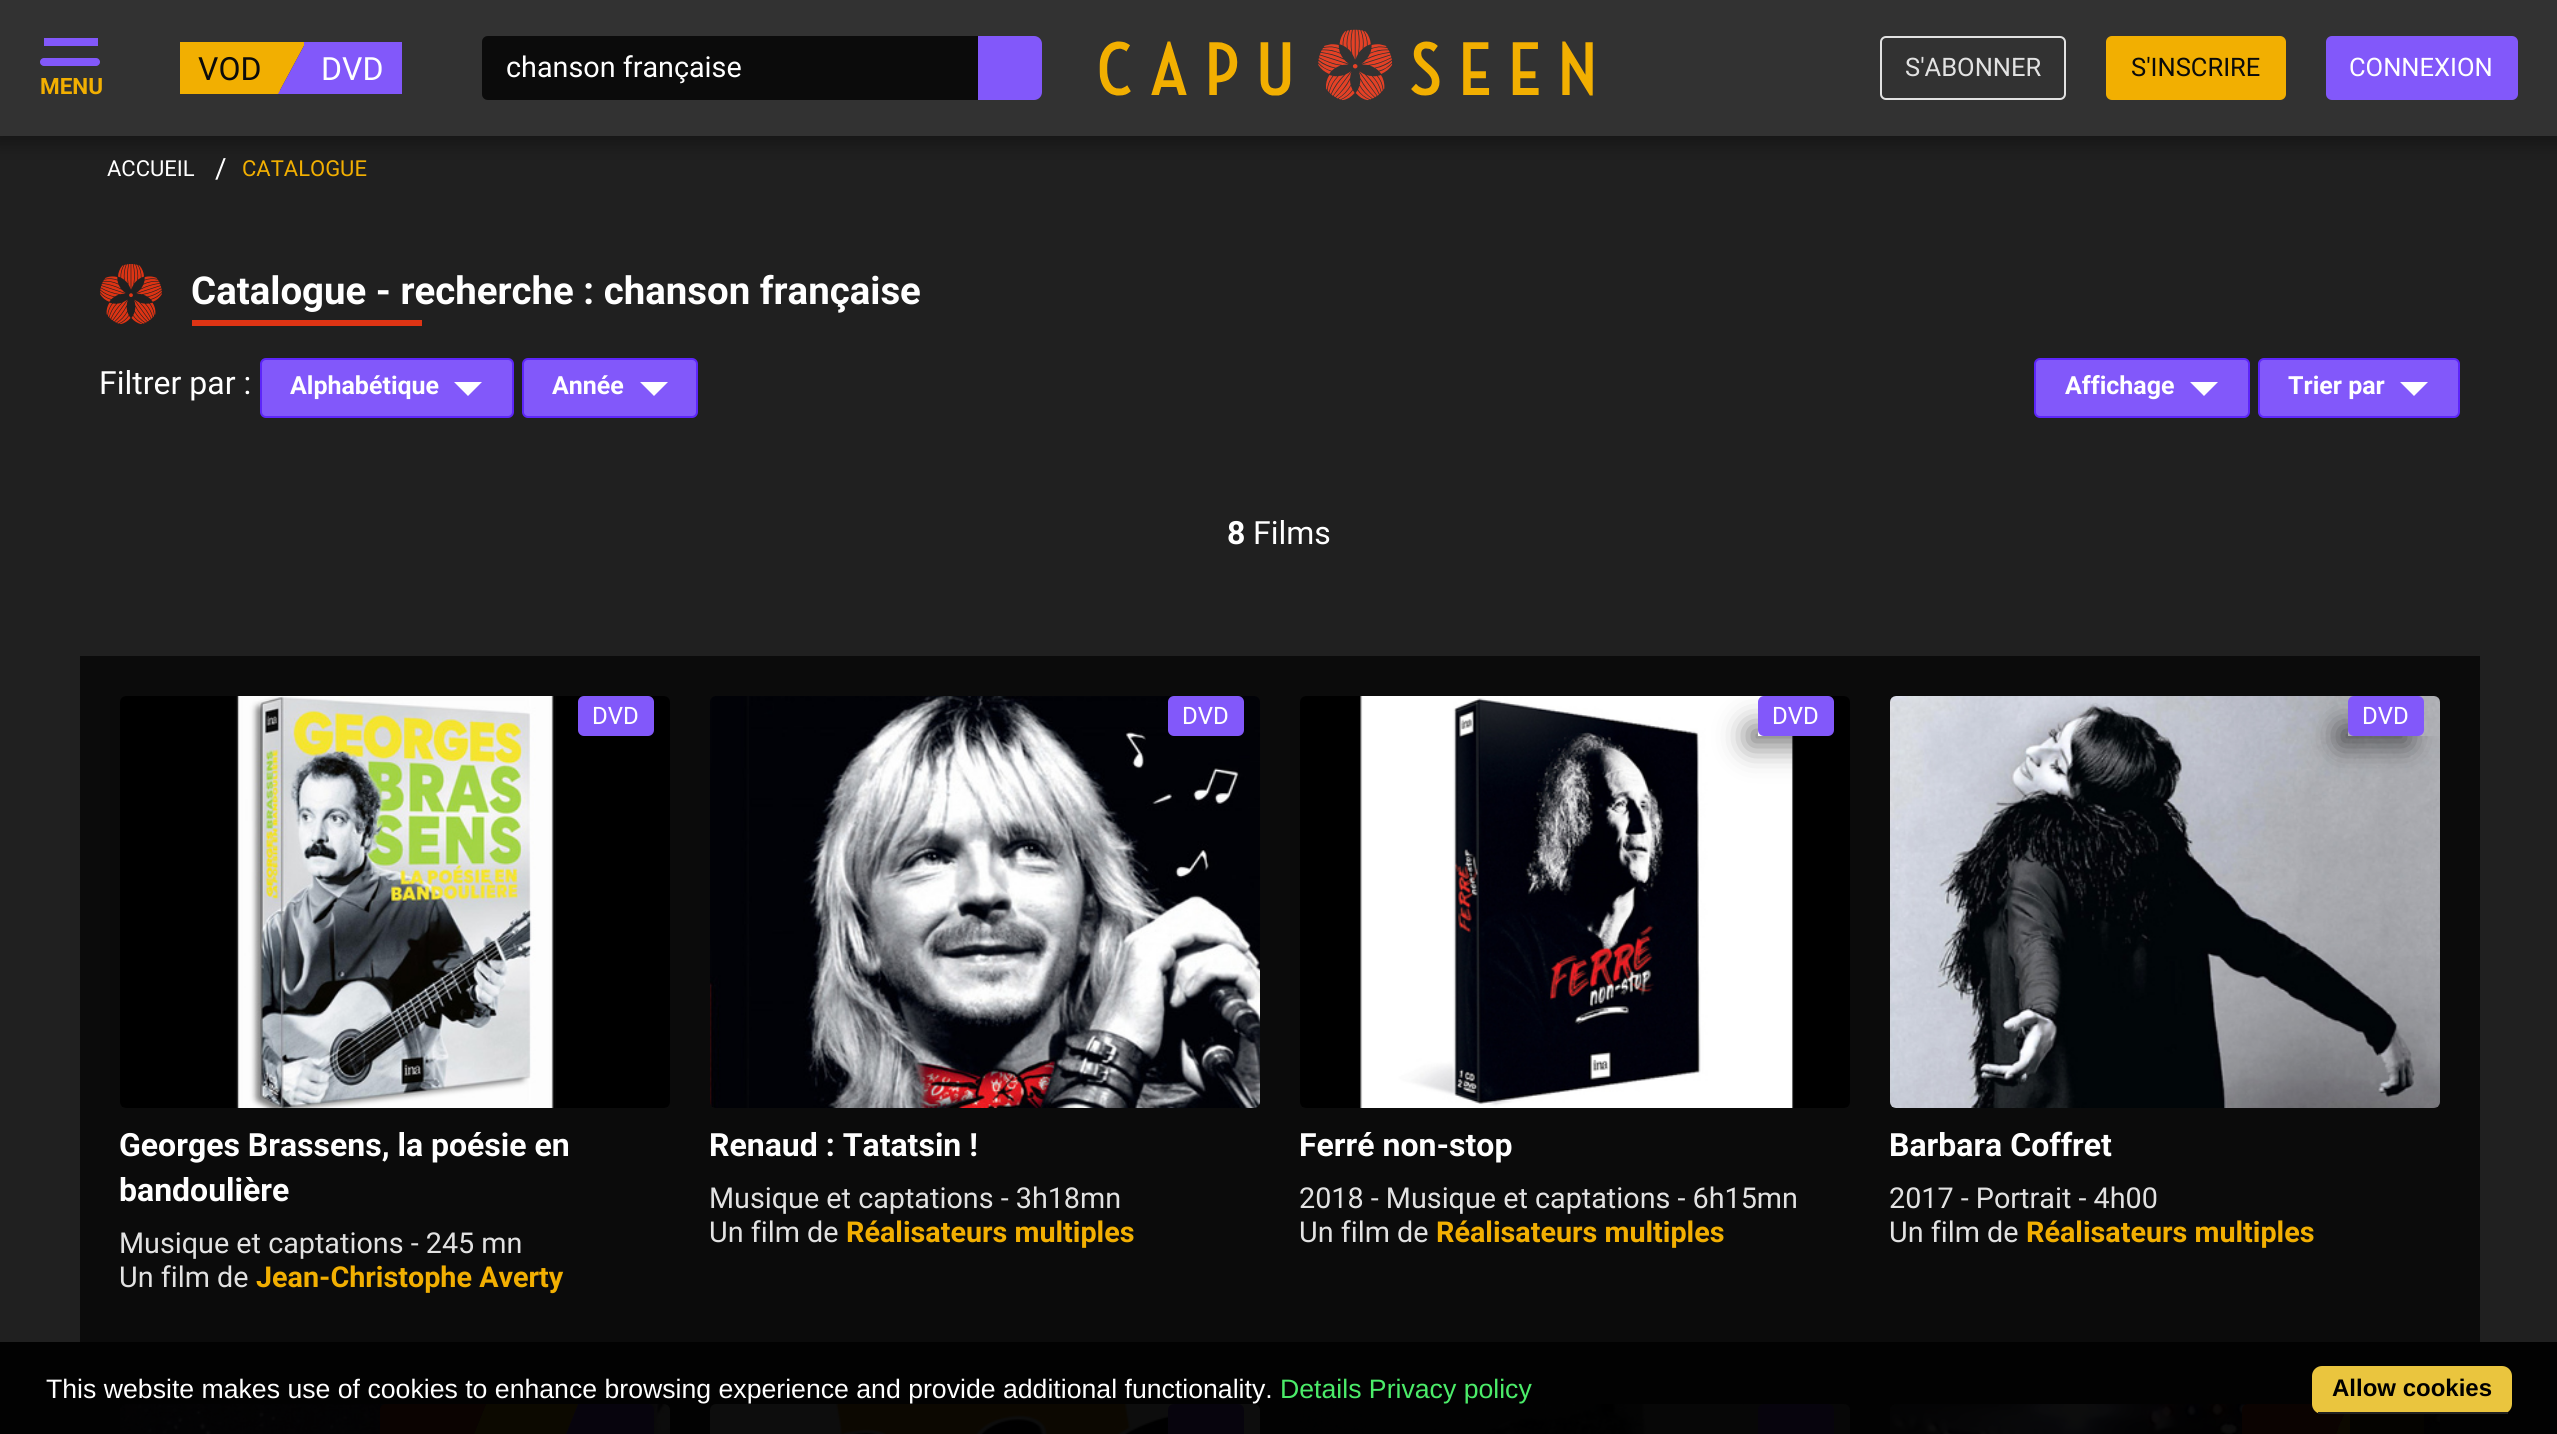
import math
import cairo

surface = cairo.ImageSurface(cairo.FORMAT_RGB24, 2557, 1434)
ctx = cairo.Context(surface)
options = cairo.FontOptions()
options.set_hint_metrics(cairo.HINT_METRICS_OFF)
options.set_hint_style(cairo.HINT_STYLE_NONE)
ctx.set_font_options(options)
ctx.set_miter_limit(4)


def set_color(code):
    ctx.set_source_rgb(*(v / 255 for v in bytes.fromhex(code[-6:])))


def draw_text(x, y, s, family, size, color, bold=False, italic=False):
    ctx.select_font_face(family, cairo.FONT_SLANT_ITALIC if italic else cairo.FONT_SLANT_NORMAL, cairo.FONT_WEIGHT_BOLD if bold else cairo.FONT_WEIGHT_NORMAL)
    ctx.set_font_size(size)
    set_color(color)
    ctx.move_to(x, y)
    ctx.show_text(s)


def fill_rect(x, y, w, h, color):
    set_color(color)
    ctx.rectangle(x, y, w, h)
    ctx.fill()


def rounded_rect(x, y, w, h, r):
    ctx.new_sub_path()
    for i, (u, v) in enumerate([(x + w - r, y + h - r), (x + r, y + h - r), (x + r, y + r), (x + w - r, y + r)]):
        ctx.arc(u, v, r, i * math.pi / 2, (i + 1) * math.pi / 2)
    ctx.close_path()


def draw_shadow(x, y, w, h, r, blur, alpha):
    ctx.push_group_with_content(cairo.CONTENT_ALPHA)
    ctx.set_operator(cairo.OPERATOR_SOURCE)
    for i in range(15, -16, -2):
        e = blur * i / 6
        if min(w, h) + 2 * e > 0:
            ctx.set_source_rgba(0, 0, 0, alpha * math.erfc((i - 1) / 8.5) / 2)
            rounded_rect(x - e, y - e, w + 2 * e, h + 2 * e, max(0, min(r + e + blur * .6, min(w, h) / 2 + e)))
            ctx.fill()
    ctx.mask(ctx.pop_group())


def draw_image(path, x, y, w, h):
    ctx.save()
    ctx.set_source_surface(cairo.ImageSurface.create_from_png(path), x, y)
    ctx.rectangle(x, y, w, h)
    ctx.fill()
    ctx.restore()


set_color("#202020")
ctx.paint()
fill_rect(0, 1342, 2557, 92, "#020202")
set_color("#000000")
draw_shadow(-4, 0, 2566, 144, 0, 9, 0.35)
fill_rect(0, 0, 2557, 136, "#323232")
fill_rect(180, 42, 100, 52, "#f2af01")
draw_text(198, 80, "VOD", "Roboto", 32, "#0b0b0b")
set_color("#f2af01")
ctx.new_path()
ctx.move_to(278, 94)
ctx.line_to(278, 42)
ctx.line_to(306, 42)
ctx.close_path()
ctx.fill()
fill_rect(304, 42, 98, 52, "#8258fa")
ctx.new_path()
ctx.move_to(306, 42)
ctx.line_to(306, 94)
ctx.line_to(278, 94)
ctx.close_path()
ctx.fill()
draw_text(321, 80, "DVD", "Roboto", 32, "#ffffff")
set_color("#0b0b0b")
ctx.new_path()
ctx.move_to(488, 36)
ctx.line_to(978, 36)
ctx.line_to(978, 100)
ctx.line_to(488, 100)
ctx.curve_to(484.5, 100, 482, 97.5, 482, 94)
ctx.line_to(482, 42)
ctx.curve_to(482, 38.5, 484.5, 36, 488, 36)
ctx.close_path()
ctx.fill()
draw_text(506, 77, "chanson française", "Roboto", 28.75, "#ffffff")
set_color("#8258fa")
ctx.new_path()
ctx.move_to(978, 36)
ctx.line_to(1034, 36)
ctx.curve_to(1038.5, 36, 1042, 39.5, 1042, 44)
ctx.line_to(1042, 92)
ctx.curve_to(1042, 96.5, 1038.5, 100, 1034, 100)
ctx.line_to(978, 100)
ctx.close_path()
ctx.fill()
fill_rect(44, 38, 54, 8, "#8258fa")
rounded_rect(40, 58, 60, 8, 4)
ctx.fill()
draw_text(40, 94, "MENU", "Roboto", 22.5, "#f2af01", bold=True)
draw_image("assets/img1.png", 1099, 29, 494, 72)
rounded_rect(1881, 37, 184, 62, 5)
set_color("#e2e2e2")
ctx.stroke()
draw_text(1905, 76, "S'ABONNER", "Roboto", 25.5, "#e2e2e2")
set_color("#f2af01")
rounded_rect(2107, 37, 178, 62, 5)
ctx.fill_preserve()
ctx.stroke()
draw_text(2131, 76, "S'INSCRIRE", "Roboto", 25.5, "#0b0b0b")
set_color("#8258fa")
rounded_rect(2327, 37, 190, 62, 5)
ctx.fill_preserve()
ctx.stroke()
draw_text(2349, 76, "CONNEXION", "Roboto", 25.5, "#ffffff")
draw_text(107, 176, "ACCUEIL", "Roboto", 22, "#ffffff")
draw_text(215, 178, "/", "Roboto", 28, "#ffffff")
draw_text(242, 176, "CATALOGUE", "Roboto", 22, "#f2af01")
draw_image("assets/img2.png", 100, 264, 62, 60)
draw_text(191, 304, "Catalogue - recherche : chanson française", "Roboto", 38.4, "#ffffff", bold=True)
fill_rect(192, 320, 230, 6, "#de3414")
draw_text(99, 394, "Filtrer par :", "Roboto", 32, "#ffffff")
set_color("#8258fa")
rounded_rect(261, 359, 252, 58, 5)
ctx.fill_preserve()
set_color("#5d26f9")
ctx.stroke()
draw_text(290, 394, "Alphabétique", "Roboto", 25, "#ffffff", bold=True)
ctx.new_path()
ctx.move_to(454, 382)
ctx.line_to(482, 382)
ctx.line_to(468, 396)
ctx.close_path()
ctx.fill()
set_color("#8258fa")
rounded_rect(523, 359, 174, 58, 5)
ctx.fill_preserve()
set_color("#5d26f9")
ctx.stroke()
draw_text(552, 394, "Année", "Roboto", 25, "#ffffff", bold=True)
ctx.new_path()
ctx.move_to(640, 382)
ctx.line_to(668, 382)
ctx.line_to(654, 396)
ctx.close_path()
ctx.fill()
set_color("#8258fa")
rounded_rect(2035, 359, 214, 58, 5)
ctx.fill_preserve()
set_color("#5d26f9")
ctx.stroke()
draw_text(2065, 394, "Affichage", "Roboto", 25, "#ffffff", bold=True)
ctx.new_path()
ctx.move_to(2190, 382)
ctx.line_to(2218, 382)
ctx.line_to(2204, 396)
ctx.close_path()
ctx.fill()
set_color("#8258fa")
rounded_rect(2259, 359, 200, 58, 5)
ctx.fill_preserve()
set_color("#5d26f9")
ctx.stroke()
draw_text(2288, 394, "Trier par", "Roboto", 25, "#ffffff", bold=True)
ctx.new_path()
ctx.move_to(2400, 382)
ctx.line_to(2428, 382)
ctx.line_to(2414, 396)
ctx.close_path()
ctx.fill()
draw_text(1227, 544, "8", "Roboto", 32, "#ffffff", bold=True)
draw_text(1253, 544, "Films", "Roboto", 32, "#ffffff")
fill_rect(80, 656, 2400, 686, "#0b0b0b")
draw_image("assets/img3.png", 120, 696, 550, 412)
set_color("#8258fa")
rounded_rect(578, 696, 76, 40, 6)
ctx.fill()
draw_text(592, 724, "DVD", "Roboto", 24, "#ffffff")
draw_text(119, 1156, "Georges Brassens, la poésie en", "Roboto", 32, "#ffffff", bold=True)
draw_text(119, 1201, "bandoulière", "Roboto", 32, "#ffffff", bold=True)
draw_text(119, 1253, "Musique et captations - 245 mn", "Roboto", 28.75, "#e2e2e2")
draw_text(119, 1287, "Un film de", "Roboto", 28.75, "#e2e2e2")
draw_text(256, 1287, "Jean-Christophe Averty", "Roboto", 28.75, "#f2af01", bold=True)
draw_image("assets/img4.png", 710, 696, 550, 412)
set_color("#8258fa")
rounded_rect(1168, 696, 76, 40, 6)
ctx.fill()
draw_text(1182, 724, "DVD", "Roboto", 24, "#ffffff")
draw_text(709, 1156, "Renaud : Tatatsin !", "Roboto", 32, "#ffffff", bold=True)
draw_text(709, 1208, "Musique et captations - 3h18mn", "Roboto", 28.75, "#e2e2e2")
draw_text(709, 1242, "Un film de", "Roboto", 28.75, "#e2e2e2")
draw_text(846, 1242, "Réalisateurs multiples", "Roboto", 28.75, "#f2af01", bold=True)
draw_image("assets/img5.png", 1300, 696, 550, 412)
ctx.save()
ctx.set_fill_rule(cairo.FILL_RULE_EVEN_ODD)
ctx.new_path()
ctx.move_to(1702, 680)
ctx.line_to(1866, 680)
ctx.line_to(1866, 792)
ctx.line_to(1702, 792)
ctx.close_path()
ctx.move_to(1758, 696)
ctx.line_to(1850, 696)
ctx.line_to(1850, 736)
ctx.line_to(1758, 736)
ctx.close_path()
ctx.clip()
set_color("#000000")
draw_shadow(1748, 726, 72, 20, 0, 15, 0.53)
ctx.restore()
set_color("#8258fa")
rounded_rect(1758, 696, 76, 40, 6)
ctx.fill()
draw_text(1772, 724, "DVD", "Roboto", 24, "#ffffff")
draw_text(1299, 1156, "Ferré non-stop", "Roboto", 32, "#ffffff", bold=True)
draw_text(1299, 1208, "2018 - Musique et captations - 6h15mn", "Roboto", 28.75, "#e2e2e2")
draw_text(1299, 1242, "Un film de", "Roboto", 28.75, "#e2e2e2")
draw_text(1436, 1242, "Réalisateurs multiples", "Roboto", 28.75, "#f2af01", bold=True)
draw_image("assets/img6.png", 1890, 696, 550, 412)
ctx.save()
ctx.set_fill_rule(cairo.FILL_RULE_EVEN_ODD)
ctx.new_path()
ctx.move_to(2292, 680)
ctx.line_to(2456, 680)
ctx.line_to(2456, 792)
ctx.line_to(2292, 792)
ctx.close_path()
ctx.move_to(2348, 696)
ctx.line_to(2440, 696)
ctx.line_to(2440, 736)
ctx.line_to(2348, 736)
ctx.close_path()
ctx.clip()
set_color("#000000")
draw_shadow(2338, 726, 72, 20, 0, 15, 0.53)
ctx.restore()
set_color("#8258fa")
rounded_rect(2348, 696, 76, 40, 6)
ctx.fill()
draw_text(2362, 724, "DVD", "Roboto", 24, "#ffffff")
draw_text(1889, 1156, "Barbara Coffret", "Roboto", 32, "#ffffff", bold=True)
draw_text(1889, 1208, "2017 - Portrait - 4h00", "Roboto", 28.75, "#e2e2e2")
draw_text(1889, 1242, "Un film de", "Roboto", 28.75, "#e2e2e2")
draw_text(2026, 1242, "Réalisateurs multiples", "Roboto", 28.75, "#f2af01", bold=True)
draw_image("assets/img7.png", 120, 1404, 550, 30)
set_color("#0b0301")
ctx.new_path()
ctx.move_to(386, 1404)
ctx.line_to(470, 1404)
ctx.line_to(470, 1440)
ctx.line_to(386, 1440)
ctx.curve_to(382.5, 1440, 380, 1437.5, 380, 1434)
ctx.line_to(380, 1410)
ctx.curve_to(380, 1406.5, 382.5, 1404, 386, 1404)
ctx.close_path()
ctx.fill()
set_color("#0c0900")
ctx.new_path()
ctx.move_to(486, 1404)
ctx.line_to(486, 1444)
ctx.line_to(470, 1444)
ctx.close_path()
ctx.fill()
set_color("#0b0301")
ctx.new_path()
ctx.move_to(470, 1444)
ctx.line_to(470, 1404)
ctx.line_to(486, 1404)
ctx.close_path()
ctx.fill()
fill_rect(486, 1404, 76, 30, "#0c0900")
set_color("#07040d")
ctx.new_path()
ctx.move_to(578, 1404)
ctx.line_to(578, 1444)
ctx.line_to(562, 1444)
ctx.close_path()
ctx.fill()
set_color("#0c0900")
ctx.new_path()
ctx.move_to(562, 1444)
ctx.line_to(562, 1404)
ctx.line_to(578, 1404)
ctx.close_path()
ctx.fill()
set_color("#07040d")
ctx.new_path()
ctx.move_to(578, 1404)
ctx.line_to(648, 1404)
ctx.curve_to(651.5, 1404, 654, 1406.5, 654, 1410)
ctx.line_to(654, 1434)
ctx.curve_to(654, 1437.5, 651.5, 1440, 648, 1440)
ctx.line_to(578, 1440)
ctx.close_path()
ctx.fill()
draw_image("assets/img8.png", 710, 1404, 550, 30)
rounded_rect(1168, 1404, 76, 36, 6)
ctx.fill()
draw_image("assets/img9.png", 1300, 1404, 550, 30)
rounded_rect(1758, 1404, 76, 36, 6)
ctx.fill()
draw_image("assets/img10.png", 1890, 1404, 550, 30)
set_color("#0b0301")
ctx.new_path()
ctx.move_to(2248, 1404)
ctx.line_to(2332, 1404)
ctx.line_to(2332, 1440)
ctx.line_to(2248, 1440)
ctx.curve_to(2244.5, 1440, 2242, 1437.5, 2242, 1434)
ctx.line_to(2242, 1410)
ctx.curve_to(2242, 1406.5, 2244.5, 1404, 2248, 1404)
ctx.close_path()
ctx.fill()
set_color("#0c0900")
ctx.new_path()
ctx.move_to(2348, 1404)
ctx.line_to(2348, 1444)
ctx.line_to(2332, 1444)
ctx.close_path()
ctx.fill()
set_color("#0b0301")
ctx.new_path()
ctx.move_to(2332, 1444)
ctx.line_to(2332, 1404)
ctx.line_to(2348, 1404)
ctx.close_path()
ctx.fill()
fill_rect(2348, 1414, 76, 20, "#0c0900")
ctx.set_source_rgba(0, 0, 0, 0.7)
ctx.rectangle(2350, 1404, 90, 30)
ctx.fill()
draw_text(46, 1398, "This website makes use of cookies to enhance browsing experience and provide additional functionality.", "Liberation Sans", 26.65, "#ffffff")
draw_text(1280, 1398, "Details Privacy policy", "Liberation Sans", 26.65, "#4bec69")
set_color("#eac53e")
rounded_rect(2312, 1366, 200, 48, 10)
ctx.fill()
fill_rect(2318, 1412, 190, 2, "#222222")
draw_text(2332, 1396, "Allow cookies", "Liberation Sans", 24, "#000000", bold=True)
surface.write_to_png("output.png")
